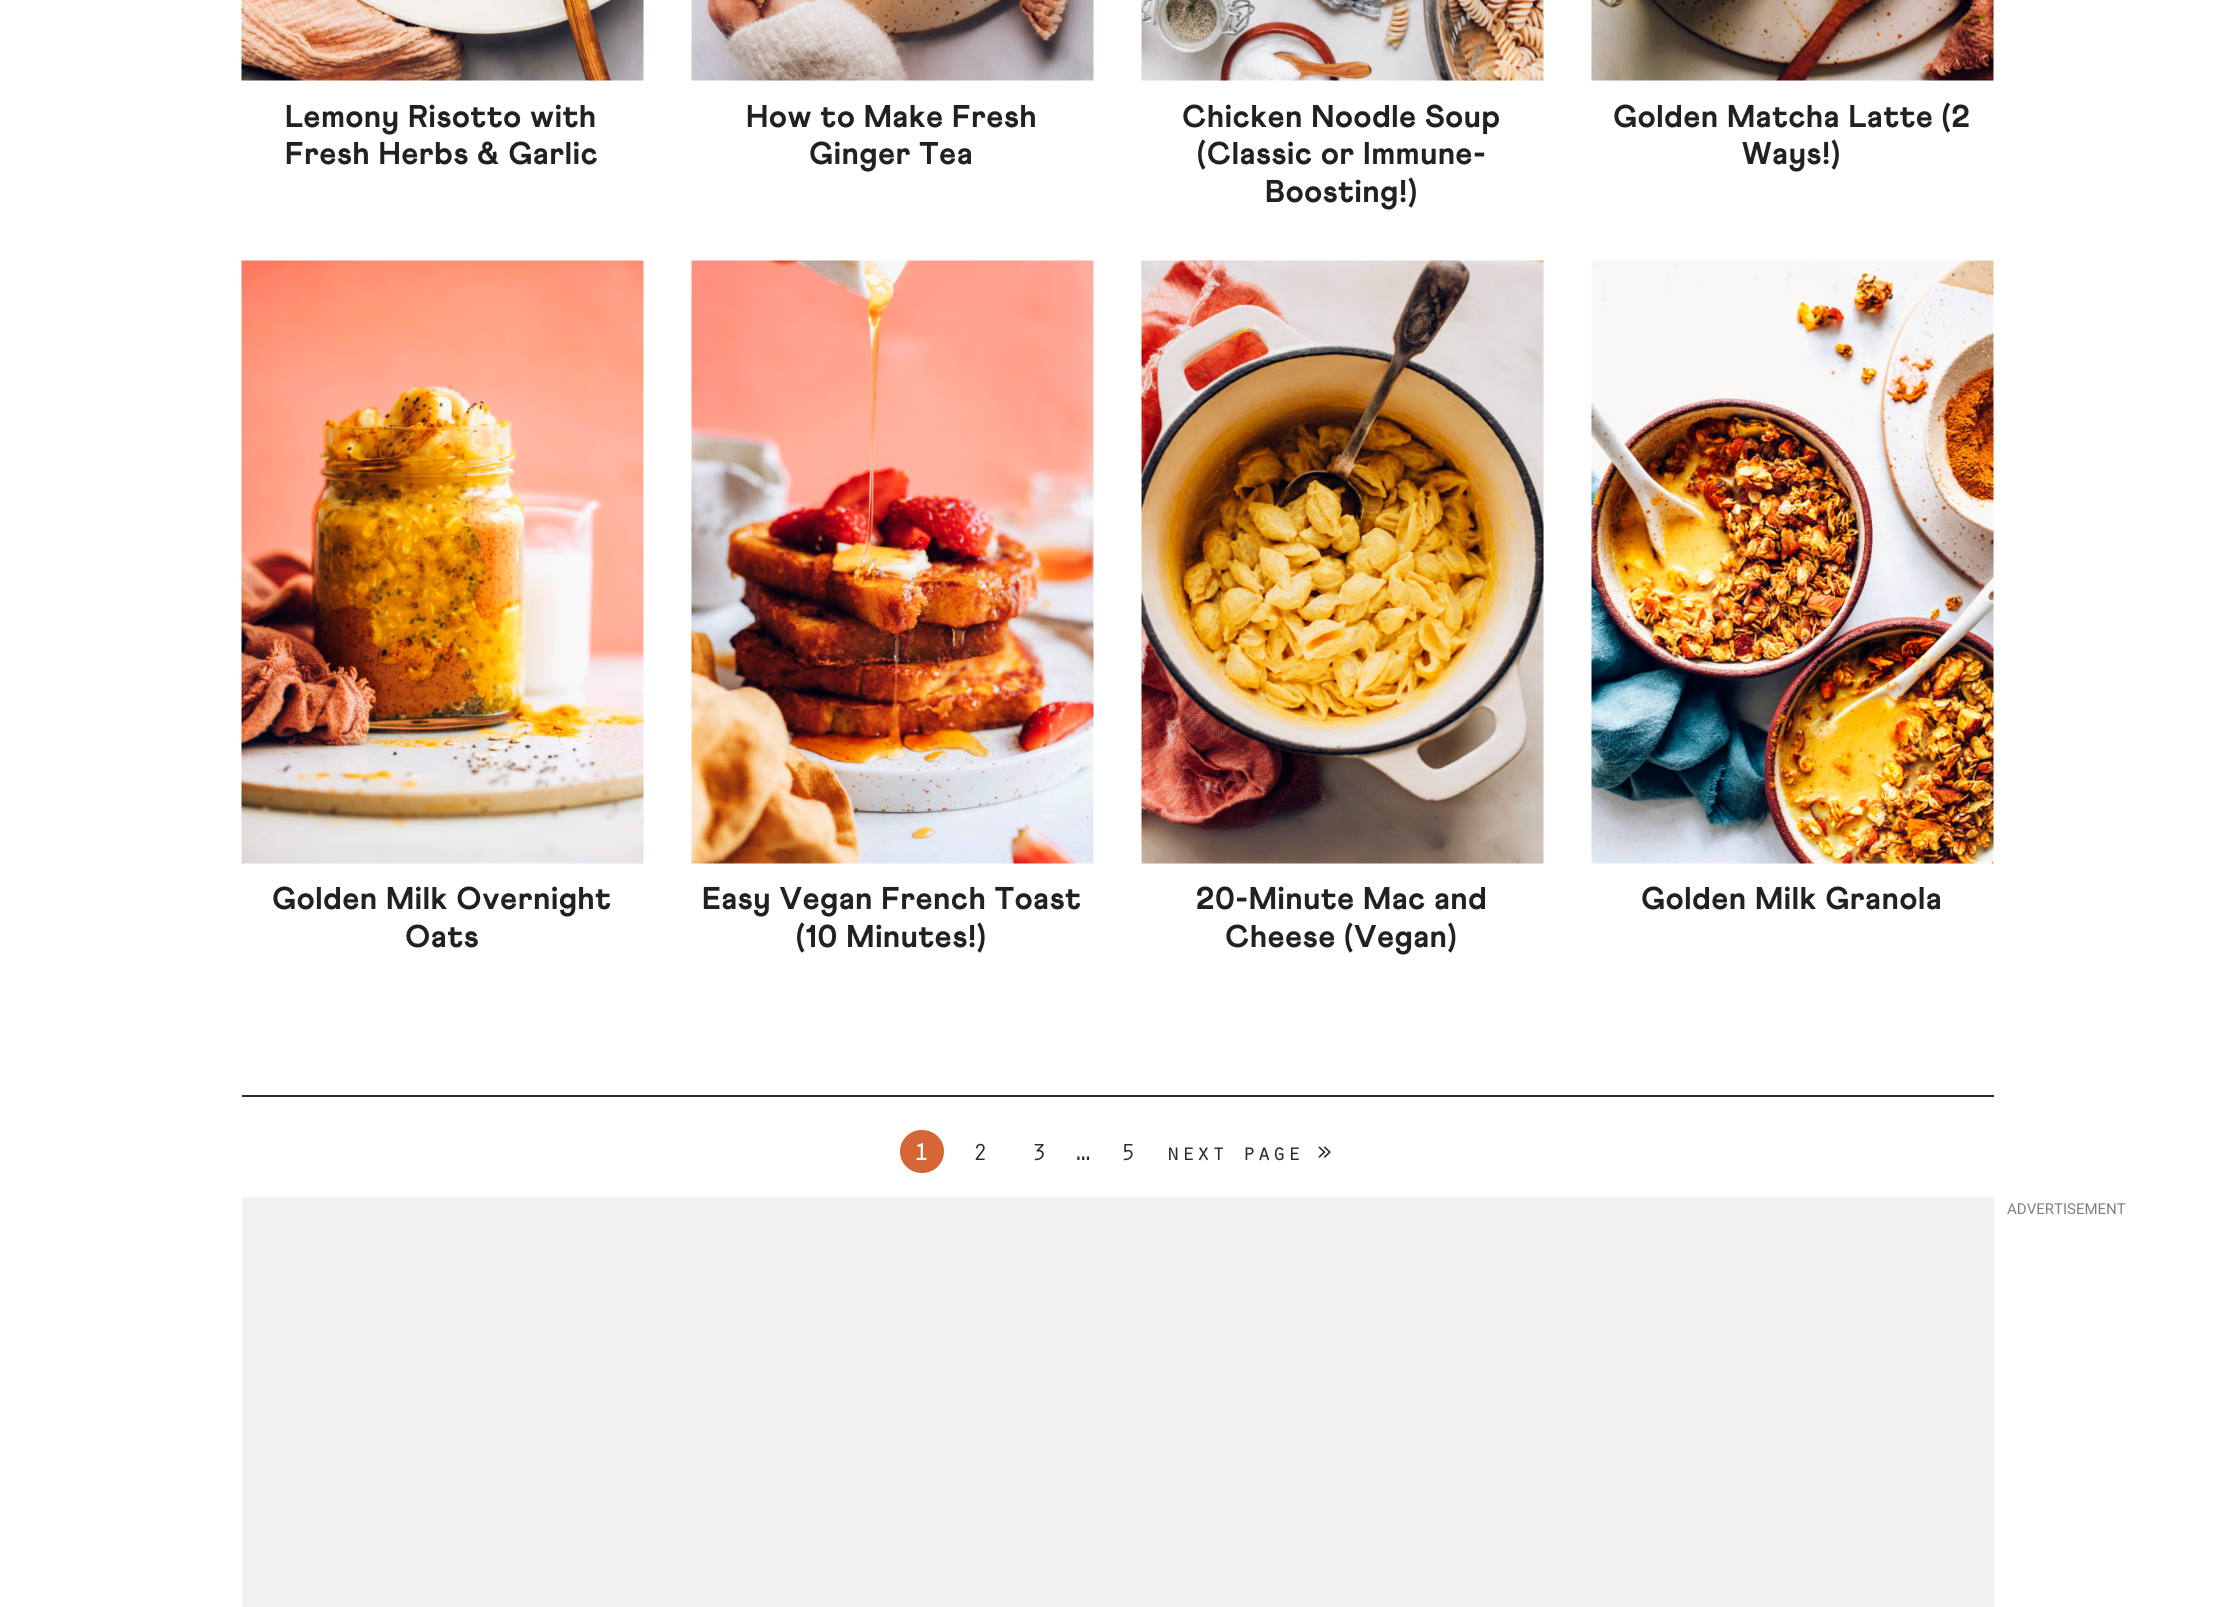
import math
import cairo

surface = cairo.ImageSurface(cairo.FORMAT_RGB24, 2233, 1607)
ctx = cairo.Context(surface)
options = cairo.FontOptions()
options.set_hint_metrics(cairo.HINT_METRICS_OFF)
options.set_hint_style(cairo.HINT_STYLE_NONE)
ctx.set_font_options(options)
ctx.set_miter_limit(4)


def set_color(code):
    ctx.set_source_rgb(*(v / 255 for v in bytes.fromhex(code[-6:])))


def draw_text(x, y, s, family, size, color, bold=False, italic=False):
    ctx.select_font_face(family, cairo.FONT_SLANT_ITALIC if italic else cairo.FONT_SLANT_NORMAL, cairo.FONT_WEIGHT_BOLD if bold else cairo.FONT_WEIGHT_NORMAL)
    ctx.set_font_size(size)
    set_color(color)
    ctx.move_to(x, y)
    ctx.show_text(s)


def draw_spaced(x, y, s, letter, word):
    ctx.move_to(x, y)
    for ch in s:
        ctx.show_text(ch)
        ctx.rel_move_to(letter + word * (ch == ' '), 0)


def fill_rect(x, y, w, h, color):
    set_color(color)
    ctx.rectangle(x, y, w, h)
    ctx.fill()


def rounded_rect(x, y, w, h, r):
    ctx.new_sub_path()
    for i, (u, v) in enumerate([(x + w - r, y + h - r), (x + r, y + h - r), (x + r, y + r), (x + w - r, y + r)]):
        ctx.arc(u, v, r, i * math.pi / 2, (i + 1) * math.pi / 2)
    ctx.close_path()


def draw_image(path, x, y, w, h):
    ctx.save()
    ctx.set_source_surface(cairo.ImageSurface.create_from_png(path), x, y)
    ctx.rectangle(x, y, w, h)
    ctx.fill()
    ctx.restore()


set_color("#ffffff")
ctx.paint()
draw_image("assets/img1.png", 241, 0, 403, 81)
ctx.select_font_face("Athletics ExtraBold")
ctx.set_font_size(31.5)
set_color("#212121")
draw_spaced(285, 127, "Lemony Risotto with", 0.75, 0)
draw_spaced(285, 164, "Fresh Herbs & Garlic", 0.75, 0)
draw_image("assets/img2.png", 691, 0, 403, 81)
draw_spaced(746, 127, "How to Make Fresh", 0.75, 0)
draw_spaced(809, 164, "Ginger Tea", 0.75, 0)
draw_image("assets/img3.png", 1141, 0, 403, 81)
draw_spaced(1182, 127, "Chicken Noodle Soup", 0.75, 0)
draw_spaced(1197, 164, "(Classic or Immune-", 0.75, 0)
draw_spaced(1265, 202, "Boosting!)", 0.75, 0)
draw_image("assets/img4.png", 1591, 0, 403, 81)
draw_spaced(1613, 127, "Golden Matcha Latte (2", 0.75, 0)
draw_spaced(1742, 164, "Ways!)", 0.75, 0)
draw_image("assets/img5.png", 241, 260, 403, 604)
draw_spaced(272, 909, "Golden Milk Overnight", 0.75, 0)
draw_spaced(405, 947, "Oats", 0.75, 0)
draw_image("assets/img6.png", 691, 260, 403, 604)
draw_spaced(702, 909, "Easy Vegan French Toast", 0.75, 0)
draw_spaced(796, 947, "(10 Minutes!)", 0.75, 0)
draw_image("assets/img7.png", 1141, 260, 403, 604)
draw_spaced(1196, 909, "20-Minute Mac and", 0.75, 0)
draw_spaced(1225, 947, "Cheese (Vegan)", 0.75, 0)
draw_image("assets/img8.png", 1591, 260, 403, 604)
draw_spaced(1641, 909, "Golden Milk Granola", 0.75, 0)
fill_rect(242, 1095, 1752, 2, "#2a2b2a")
set_color("#d56638")
rounded_rect(900, 1130, 44, 43, 21.5)
ctx.fill()
ctx.select_font_face("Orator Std", cairo.FONT_SLANT_NORMAL, cairo.FONT_WEIGHT_BOLD)
ctx.set_font_size(24)
set_color("#ffffff")
draw_spaced(914, 1160, "1", 0.75, 0)
ctx.select_font_face("Orator Std")
set_color("#2a2b2a")
draw_spaced(973, 1160, "2", 0.75, 0)
draw_spaced(1032, 1160, "3", 0.75, 0)
draw_spaced(1076, 1160, "…", 0.75, 0)
draw_spaced(1121, 1160, "5", 0.75, 0)
draw_spaced(1166, 1160, "next page »", 0.75, 0)
fill_rect(242, 1197, 1752, 410, "#f1f1f1")
draw_text(2007, 1214, "ADVERTISEMENT", "Roboto", 15, "#808080")
surface.write_to_png("output.png")
